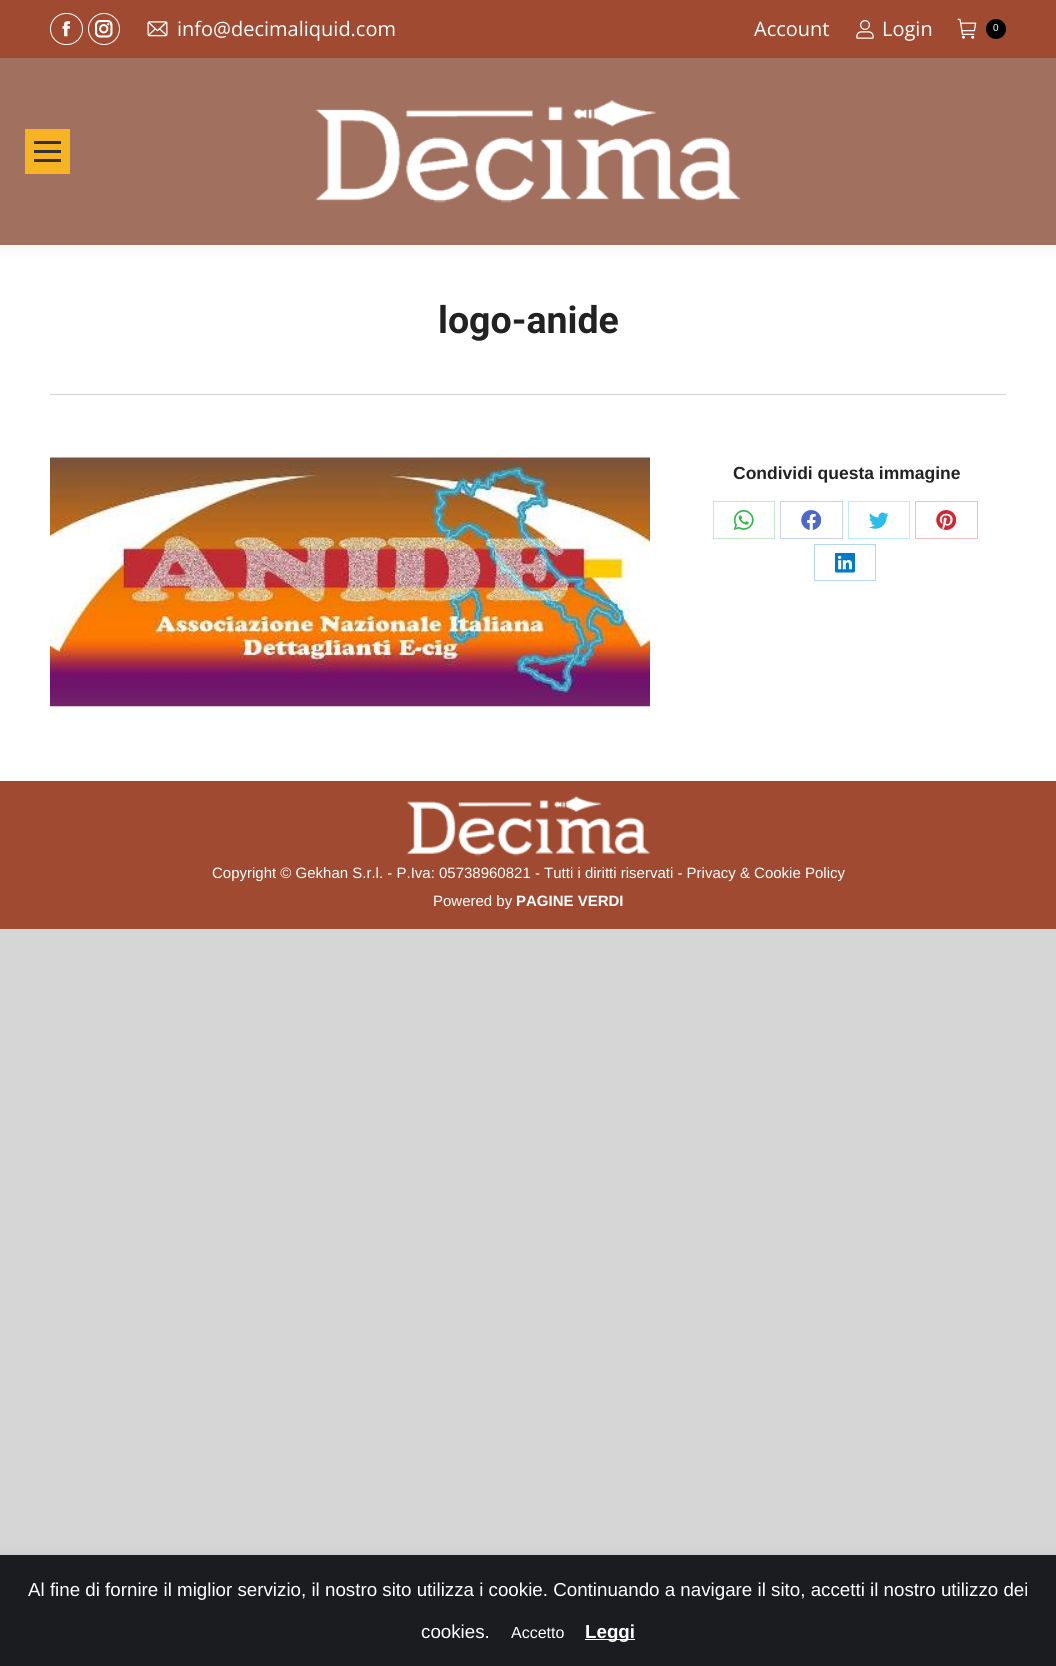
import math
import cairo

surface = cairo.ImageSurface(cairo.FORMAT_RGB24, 1056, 1666)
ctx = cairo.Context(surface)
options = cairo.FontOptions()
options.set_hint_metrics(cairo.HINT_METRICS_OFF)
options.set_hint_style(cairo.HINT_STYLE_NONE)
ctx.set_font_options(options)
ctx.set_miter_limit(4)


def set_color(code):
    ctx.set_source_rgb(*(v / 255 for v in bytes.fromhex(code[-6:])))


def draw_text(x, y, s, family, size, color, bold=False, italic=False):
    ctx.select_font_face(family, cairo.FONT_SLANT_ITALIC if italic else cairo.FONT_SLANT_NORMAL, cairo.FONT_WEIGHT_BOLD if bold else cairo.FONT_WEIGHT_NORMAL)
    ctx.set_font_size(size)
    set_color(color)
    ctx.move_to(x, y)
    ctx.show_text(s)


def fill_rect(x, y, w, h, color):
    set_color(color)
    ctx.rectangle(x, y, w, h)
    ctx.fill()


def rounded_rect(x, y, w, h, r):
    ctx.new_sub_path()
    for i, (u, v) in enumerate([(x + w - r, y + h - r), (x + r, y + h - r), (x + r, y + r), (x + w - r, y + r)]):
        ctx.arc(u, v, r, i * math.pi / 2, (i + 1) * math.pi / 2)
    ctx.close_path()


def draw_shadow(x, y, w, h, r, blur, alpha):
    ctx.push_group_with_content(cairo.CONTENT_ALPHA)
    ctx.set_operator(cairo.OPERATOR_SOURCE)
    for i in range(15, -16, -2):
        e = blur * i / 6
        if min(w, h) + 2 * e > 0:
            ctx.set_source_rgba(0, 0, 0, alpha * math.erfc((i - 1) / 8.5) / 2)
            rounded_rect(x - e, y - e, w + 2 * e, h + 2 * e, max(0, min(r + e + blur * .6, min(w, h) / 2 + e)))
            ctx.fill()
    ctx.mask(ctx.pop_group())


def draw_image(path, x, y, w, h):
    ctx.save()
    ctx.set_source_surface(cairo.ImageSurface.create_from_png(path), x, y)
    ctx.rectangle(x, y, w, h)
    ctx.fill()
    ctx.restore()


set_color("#d6d6d6")
ctx.paint()
fill_rect(0, 245, 1056, 536, "#ffffff")
set_color("#000000")
draw_shadow(-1, -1, 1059, 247, 0, 9.5, 0.07)
fill_rect(0, 58, 1056, 187, "#a1705f")
fill_rect(0, 0, 1056, 58, "#a04b31")
rounded_rect(50.5, 13.5, 32, 31, 15.5)
set_color("#ffffff")
ctx.set_line_width(1)
ctx.stroke()
draw_image("assets/img1.png", 62, 21, 8, 16)
ctx.arc(104, 29, 15.5, 0, 2 * math.pi)
ctx.stroke()
draw_image("assets/img2.png", 95, 20, 18, 18)
draw_image("assets/img3.png", 147, 21, 21, 16)
draw_text(177, 36, "info@decimaliquid.com", "Open Sans", 20, "#ffffff")
draw_text(754, 36, "Account", "Open Sans", 20, "#ffffff")
draw_image("assets/img4.png", 856, 20, 18, 19)
draw_text(882, 36, "Login", "Open Sans", 20, "#ffffff")
draw_image("assets/img5.png", 957, 18, 20, 21)
set_color("#000000")
ctx.arc(996, 29, 10, 0, 2 * math.pi)
ctx.fill()
draw_text(993, 31, "0", "Liberation Sans", 10, "#ffffff")
fill_rect(25, 129, 45, 45, "#f8b322")
fill_rect(34, 141, 27, 3, "#333333")
fill_rect(34, 150, 27, 3, "#333333")
fill_rect(34, 159, 27, 3, "#333333")
draw_image("assets/img6.png", 315, 100, 426, 103)
draw_text(438, 333, "logo-anide", "Roboto", 37.5, "#222222", bold=True)
fill_rect(50, 394, 956, 1, "#d6d6d6")
draw_image("assets/img7.png", 50, 457, 600, 250)
draw_text(733, 479, "Condividi questa immagine", "Liberation Sans", 17.5, "#222222", bold=True)
ctx.rectangle(713.5, 501.5, 61, 37)
set_color("#c3e9ca")
ctx.stroke()
draw_image("assets/img8.png", 734, 510, 20, 20)
ctx.rectangle(780.5, 501.5, 62, 37)
set_color("#c9d2ee")
ctx.stroke()
draw_image("assets/img9.png", 801, 510, 20, 20)
ctx.rectangle(848.5, 501.5, 61, 37)
set_color("#bfecf9")
ctx.stroke()
draw_image("assets/img10.png", 869, 512, 20, 17)
ctx.rectangle(915.5, 501.5, 62, 37)
set_color("#f1bfc2")
ctx.stroke()
draw_image("assets/img11.png", 936, 510, 20, 20)
ctx.rectangle(814.5, 544.5, 61, 36)
set_color("#b3d7ee")
ctx.stroke()
draw_image("assets/img12.png", 835, 553, 20, 20)
fill_rect(0, 781, 1056, 148, "#a04b31")
draw_image("assets/img13.png", 406, 796, 245, 61)
draw_text(212, 878, "Copyright © Gekhan S.r.l. - P.Iva: 05738960821 - Tutti i diritti riservati - Privacy & Cookie Policy", "Liberation Sans", 15, "#ffffff")
draw_text(433, 906, "Powered by", "Liberation Sans", 15, "#ffffff")
draw_text(516, 906, "PAGINE VERDI", "Liberation Sans", 15, "#ffffff", bold=True)
set_color("#acabab")
draw_shadow(0, 1554, 1056, 111, 0, 6, 0.3)
fill_rect(0, 1555, 1056, 111, "#1a1c20")
draw_text(28, 1596, "Al fine di fornire il miglior servizio, il nostro sito utilizza i cookie. Continuando a navigare il sito, accetti il nostro utilizzo dei", "Liberation Sans", 18.75, "#ffffff")
draw_text(421, 1638, "cookies.", "Liberation Sans", 18.75, "#ffffff")
draw_text(511, 1638, "Accetto", "Liberation Sans", 16, "#ffffff")
fill_rect(585, 1639, 50, 1, "#ffffff")
draw_text(585, 1638, "Leggi", "Liberation Sans", 18.75, "#ffffff", bold=True)
surface.write_to_png("output.png")
